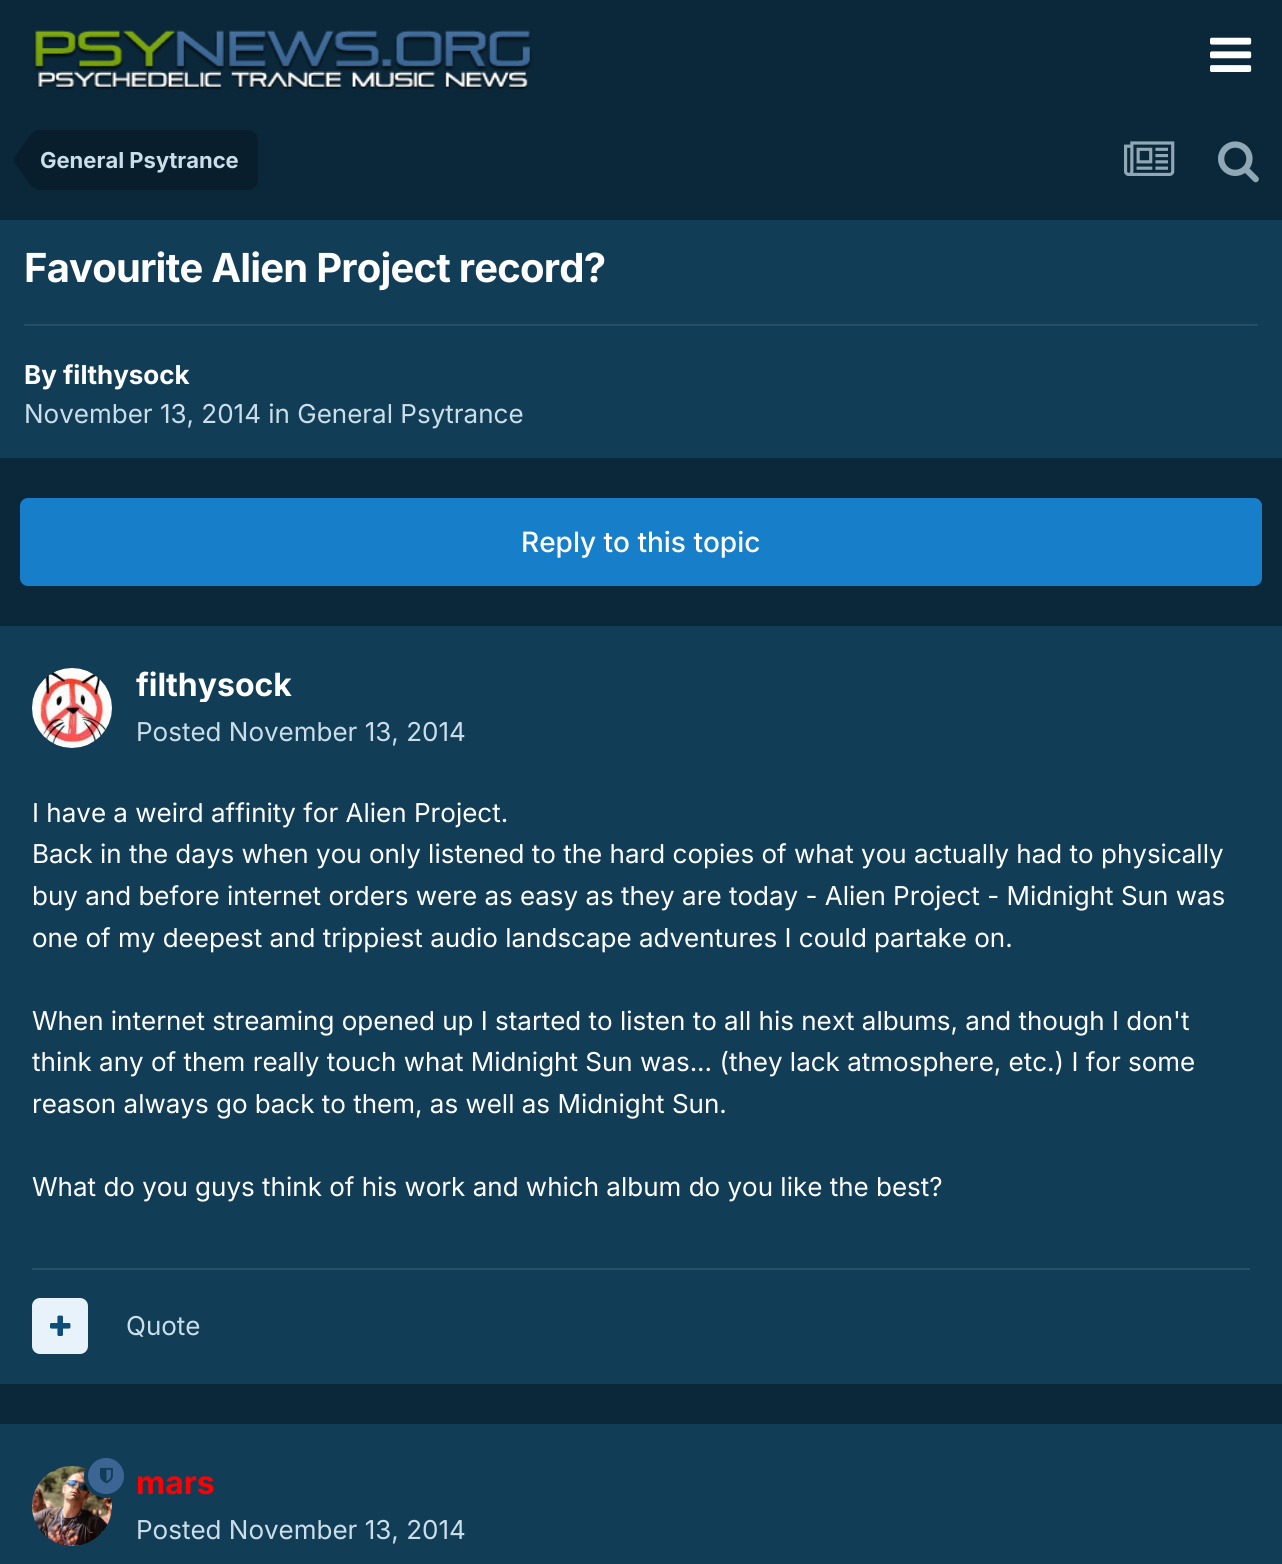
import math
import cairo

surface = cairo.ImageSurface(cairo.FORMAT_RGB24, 1282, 1564)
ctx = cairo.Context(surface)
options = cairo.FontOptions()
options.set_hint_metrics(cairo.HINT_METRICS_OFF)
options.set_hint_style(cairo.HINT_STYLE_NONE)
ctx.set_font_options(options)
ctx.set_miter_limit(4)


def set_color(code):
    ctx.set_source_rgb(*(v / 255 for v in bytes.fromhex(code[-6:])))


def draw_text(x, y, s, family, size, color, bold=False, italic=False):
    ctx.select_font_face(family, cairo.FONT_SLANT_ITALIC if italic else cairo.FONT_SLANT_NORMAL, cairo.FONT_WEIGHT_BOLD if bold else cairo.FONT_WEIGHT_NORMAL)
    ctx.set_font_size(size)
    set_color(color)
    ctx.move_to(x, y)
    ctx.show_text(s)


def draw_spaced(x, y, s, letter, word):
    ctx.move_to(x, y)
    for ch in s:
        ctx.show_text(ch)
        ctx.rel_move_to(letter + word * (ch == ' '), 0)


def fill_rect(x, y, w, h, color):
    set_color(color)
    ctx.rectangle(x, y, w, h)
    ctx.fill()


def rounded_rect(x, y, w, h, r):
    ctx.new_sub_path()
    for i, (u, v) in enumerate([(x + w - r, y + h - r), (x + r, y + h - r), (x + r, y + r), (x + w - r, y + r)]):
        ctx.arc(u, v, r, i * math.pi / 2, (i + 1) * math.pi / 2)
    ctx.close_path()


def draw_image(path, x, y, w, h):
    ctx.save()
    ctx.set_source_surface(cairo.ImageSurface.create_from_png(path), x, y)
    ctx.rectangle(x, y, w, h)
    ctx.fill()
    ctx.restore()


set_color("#0b283a")
ctx.paint()
draw_image("assets/img1.png", 34, 30, 498, 60)
draw_image("assets/img2.png", 1210, 37, 42, 35)
set_color("#081e2c")
ctx.new_path()
ctx.move_to(40, 130)
ctx.line_to(248, 130)
ctx.curve_to(253.5, 130, 258, 134.5, 258, 140)
ctx.line_to(258, 180)
ctx.curve_to(258, 185.5, 253.5, 190, 248, 190)
ctx.line_to(40, 190)
ctx.close_path()
ctx.fill()
ctx.new_path()
ctx.move_to(40, 160)
ctx.line_to(40, 190)
ctx.curve_to(36.5, 190, 33, 188, 30, 185)
ctx.line_to(15, 163.5)
ctx.curve_to(14.5, 162.5, 14, 161.5, 14, 160)
ctx.close_path()
ctx.move_to(40, 160)
ctx.line_to(14, 160)
ctx.curve_to(14, 158.5, 14.5, 157.5, 15, 156.5)
ctx.line_to(30, 135)
ctx.curve_to(33, 132, 36.5, 130, 40, 130)
ctx.close_path()
ctx.fill()
draw_text(40, 168, "General Psytrance", "Inter", 22, "#cadee9", bold=True)
draw_image("assets/img3.png", 1124, 141, 51, 35)
draw_image("assets/img4.png", 1218, 141, 41, 42)
fill_rect(0, 220, 1282, 238, "#123d57")
ctx.set_font_size(40)
set_color("#ffffff")
draw_spaced(24, 282, "Favourite Alien Project record?", -0.8, 0)
fill_rect(24, 324, 1234, 2, "#254d64")
draw_text(24, 384, "By filthysock", "Inter", 26, "#ffffff", bold=True)
draw_text(24, 423, "November 13, 2014 in General Psytrance", "Inter", 26, "#cadee9")
set_color("#177ec9")
rounded_rect(20, 498, 1242, 88, 8)
ctx.fill()
draw_text(521, 552, "Reply to this topic", "Inter Medium", 28, "#ffffff")
fill_rect(0, 626, 1282, 758, "#123d57")
draw_image("assets/img5.png", 32, 668, 80, 80)
ctx.save()
ctx.rectangle(136, 666, 156, 36)
ctx.clip()
draw_text(136, 696, "filthysock", "Inter", 32, "#ffffff", bold=True)
ctx.restore()
draw_text(136, 741, "Posted November 13, 2014", "Inter", 26, "#cadee9")
draw_text(32, 822, "I have a weird affinity for Alien Project.", "Inter", 26, "#ffffff")
draw_text(32, 863, "Back in the days when you only listened to the hard copies of what you actually had to physically", "Inter", 26, "#ffffff")
draw_text(32, 905, "buy and before internet orders were as easy as they are today - Alien Project - Midnight Sun was", "Inter", 26, "#ffffff")
draw_text(32, 947, "one of my deepest and trippiest audio landscape adventures I could partake on.", "Inter", 26, "#ffffff")
draw_text(32, 1030, "When internet streaming opened up I started to listen to all his next albums, and though I don't", "Inter", 26, "#ffffff")
draw_text(32, 1071, "think any of them really touch what Midnight Sun was... (they lack atmosphere, etc.) I for some", "Inter", 26, "#ffffff")
draw_text(32, 1113, "reason always go back to them, as well as Midnight Sun.", "Inter", 26, "#ffffff")
draw_text(32, 1196, "What do you guys think of his work and which album do you like the best?", "Inter", 26, "#ffffff")
fill_rect(32, 1268, 1218, 2, "#2a5068")
set_color("#e8f2fa")
rounded_rect(32, 1298, 56, 56, 8)
ctx.fill()
draw_image("assets/img6.png", 50, 1315, 21, 21)
draw_text(126, 1335, "Quote", "Inter", 26, "#cadee9")
fill_rect(0, 1424, 1282, 140, "#123d57")
draw_image("assets/img8.png", 32, 1466, 80, 80)
set_color("#3d6594")
ctx.arc(106, 1476, 20, 0, 2 * math.pi)
ctx.fill_preserve()
set_color("#123d57")
ctx.set_line_width(4)
ctx.stroke()
draw_image("assets/img7.png", 100, 1467, 13, 17)
draw_text(136, 1494, "mars", "Inter", 32, "#ff0000", bold=True)
draw_text(136, 1539, "Posted November 13, 2014", "Inter", 26, "#cadee9")
surface.write_to_png("output.png")
